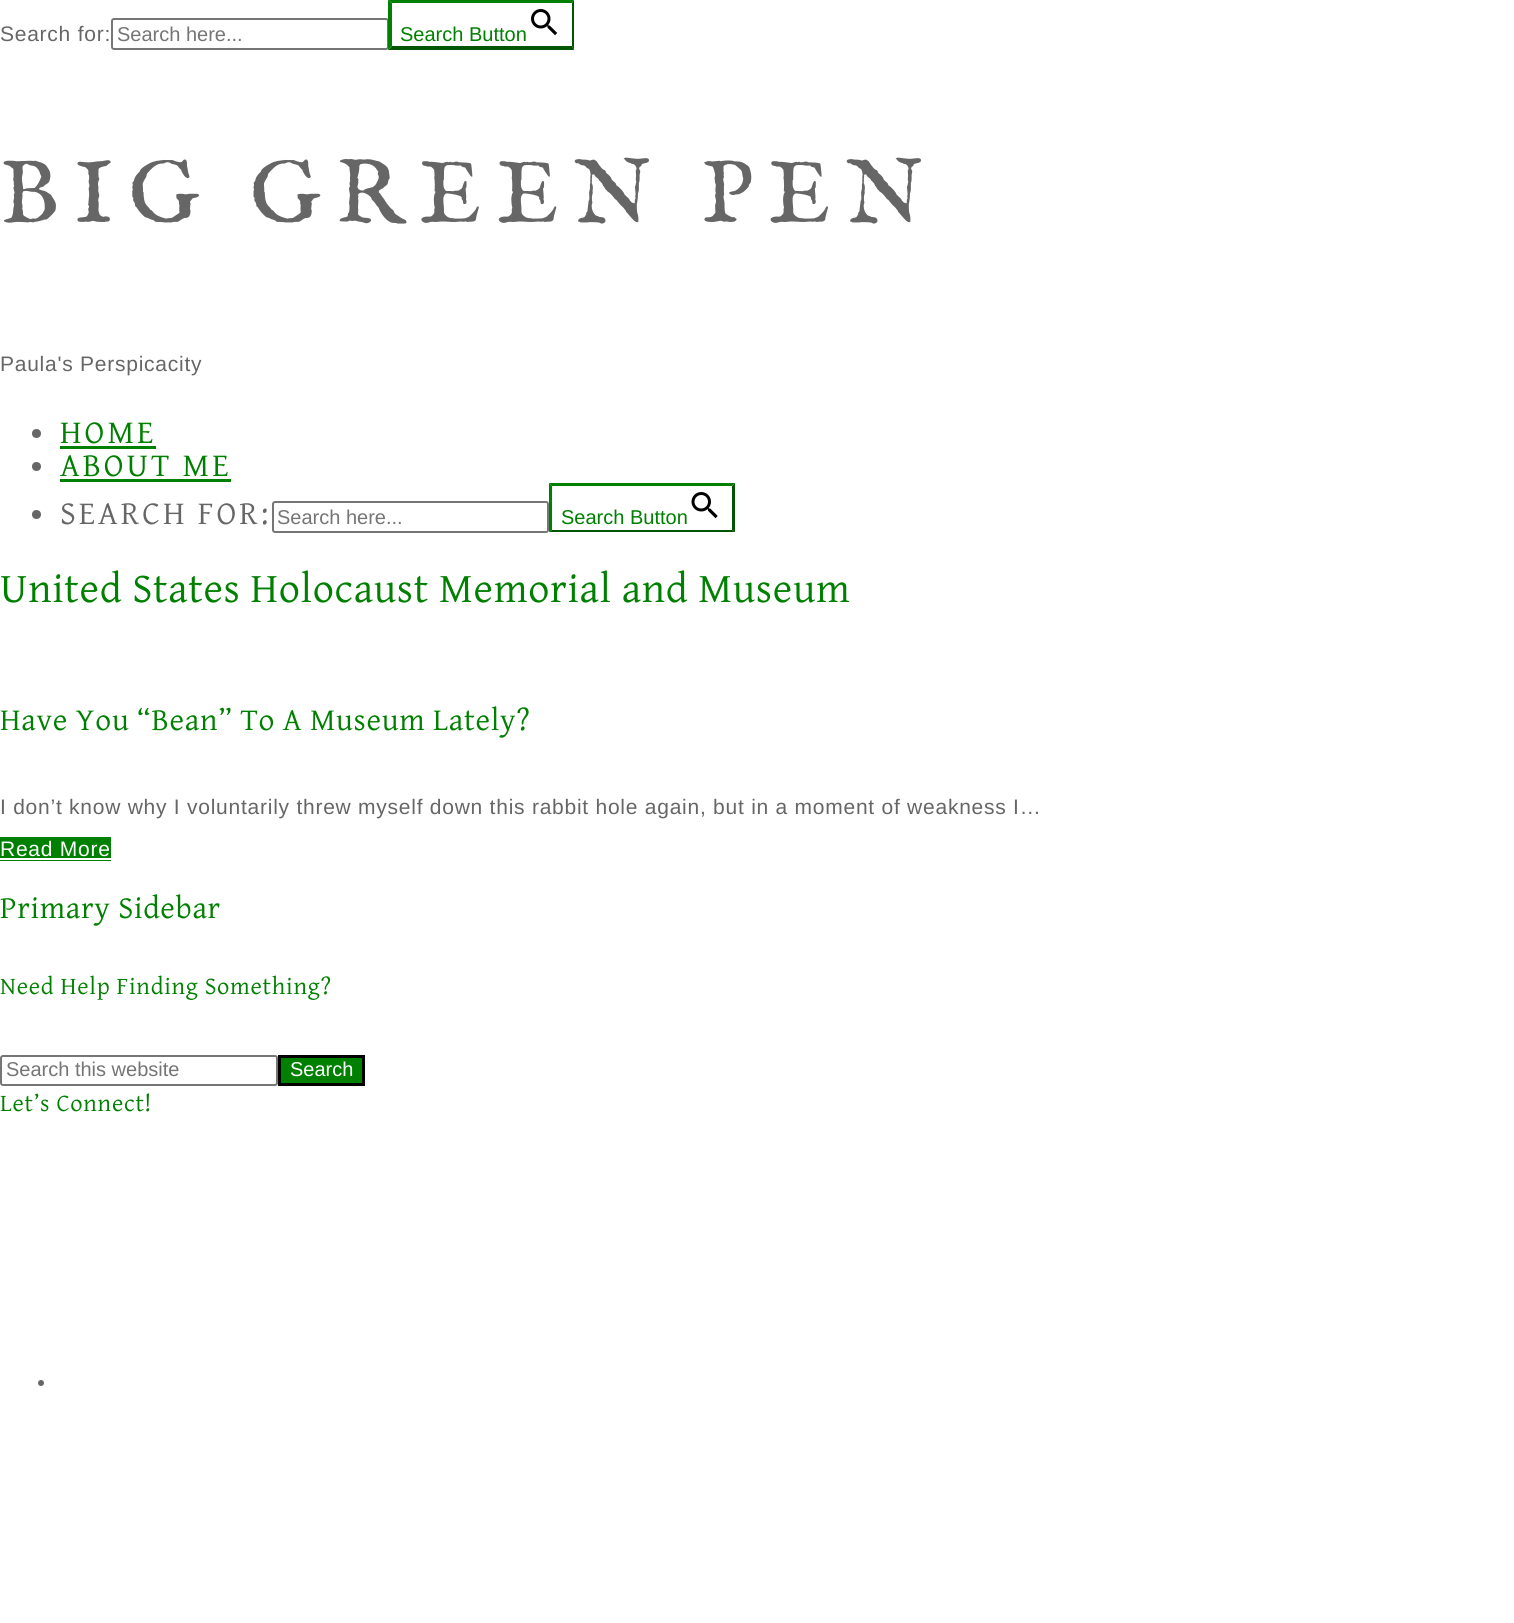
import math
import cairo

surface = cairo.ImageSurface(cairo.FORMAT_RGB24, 1514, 1623)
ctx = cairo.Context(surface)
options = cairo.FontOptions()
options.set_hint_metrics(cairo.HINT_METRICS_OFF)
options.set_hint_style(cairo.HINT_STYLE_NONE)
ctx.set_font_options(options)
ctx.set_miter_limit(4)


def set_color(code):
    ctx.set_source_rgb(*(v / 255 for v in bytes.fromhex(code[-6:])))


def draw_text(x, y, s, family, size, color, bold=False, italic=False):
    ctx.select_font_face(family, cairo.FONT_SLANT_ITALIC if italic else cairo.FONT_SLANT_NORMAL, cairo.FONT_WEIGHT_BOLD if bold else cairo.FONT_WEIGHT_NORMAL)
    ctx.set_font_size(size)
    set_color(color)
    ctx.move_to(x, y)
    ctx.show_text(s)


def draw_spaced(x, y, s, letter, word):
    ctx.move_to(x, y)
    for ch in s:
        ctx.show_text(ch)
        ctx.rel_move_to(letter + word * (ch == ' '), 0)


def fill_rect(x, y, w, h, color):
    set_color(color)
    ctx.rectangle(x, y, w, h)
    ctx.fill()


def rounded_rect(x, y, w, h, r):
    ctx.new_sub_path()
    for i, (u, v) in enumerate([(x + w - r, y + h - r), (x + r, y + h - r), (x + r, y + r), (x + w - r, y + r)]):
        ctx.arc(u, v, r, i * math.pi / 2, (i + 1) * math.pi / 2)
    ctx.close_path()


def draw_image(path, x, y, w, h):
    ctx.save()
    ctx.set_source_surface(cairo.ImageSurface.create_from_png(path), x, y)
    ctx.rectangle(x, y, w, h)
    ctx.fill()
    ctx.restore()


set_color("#ffffff")
ctx.paint()
ctx.select_font_face("Arimo")
ctx.set_font_size(21)
set_color("#666666")
draw_spaced(0, 41, "Search for:", 0.75, 0)
rounded_rect(112, 19, 276, 30, 2)
set_color("#767676")
ctx.stroke()
draw_text(117, 41, "Search here...", "Liberation Sans", 20, "#757575")
set_color("#008000")
ctx.new_path()
ctx.move_to(388, 0)
ctx.line_to(574, 0)
ctx.line_to(572, 3)
ctx.line_to(392, 3)
ctx.close_path()
ctx.fill()
set_color("#005500")
ctx.new_path()
ctx.move_to(574, 0)
ctx.line_to(574, 50)
ctx.line_to(572, 46)
ctx.line_to(572, 3)
ctx.close_path()
ctx.fill()
ctx.new_path()
ctx.move_to(574, 50)
ctx.line_to(388, 50)
ctx.line_to(392, 46)
ctx.line_to(572, 46)
ctx.close_path()
ctx.fill()
set_color("#008000")
ctx.new_path()
ctx.move_to(388, 50)
ctx.line_to(388, 0)
ctx.line_to(392, 3)
ctx.line_to(392, 46)
ctx.close_path()
ctx.fill()
draw_text(400, 41, "Search Button", "Liberation Sans", 20, "#008000")
draw_image("assets/img1.png", 531, 9, 27, 27)
ctx.select_font_face("IM FELL English")
ctx.set_font_size(90)
set_color("#666666")
draw_spaced(0, 222, "BIG GREEN PEN", 15, 0)
ctx.select_font_face("Arimo")
ctx.set_font_size(21)
draw_spaced(0, 371, "Paula's Perspicacity", 0.75, 0)
ctx.new_path()
ctx.arc(36.5, 433.5, 4.5, 0, 2 * math.pi)
ctx.fill()
ctx.select_font_face("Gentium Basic")
ctx.set_font_size(33)
set_color("#008000")
draw_spaced(60, 443, "HOME", 3, 0)
fill_rect(60, 446, 96, 3, "#008000")
set_color("#666666")
ctx.new_path()
ctx.arc(36.5, 466.5, 4.5, 0, 2 * math.pi)
ctx.fill()
set_color("#008000")
draw_spaced(60, 476, "ABOUT ME", 3, 0)
fill_rect(60, 479, 171, 3, "#008000")
set_color("#666666")
ctx.new_path()
ctx.arc(36.5, 514.5, 4.5, 0, 2 * math.pi)
ctx.fill()
draw_spaced(60, 524, "SEARCH FOR:", 3, 0)
rounded_rect(273, 502, 275, 30, 2)
set_color("#767676")
ctx.stroke()
draw_text(277, 524, "Search here...", "Liberation Sans", 20, "#757575")
set_color("#008000")
ctx.new_path()
ctx.move_to(549, 483)
ctx.line_to(735, 483)
ctx.line_to(732, 486)
ctx.line_to(552, 486)
ctx.close_path()
ctx.fill()
set_color("#005500")
ctx.new_path()
ctx.move_to(735, 483)
ctx.line_to(735, 532)
ctx.line_to(732, 530)
ctx.line_to(732, 486)
ctx.close_path()
ctx.fill()
ctx.new_path()
ctx.move_to(735, 532)
ctx.line_to(549, 532)
ctx.line_to(552, 530)
ctx.line_to(732, 530)
ctx.close_path()
ctx.fill()
set_color("#008000")
ctx.new_path()
ctx.move_to(549, 532)
ctx.line_to(549, 483)
ctx.line_to(552, 486)
ctx.line_to(552, 530)
ctx.close_path()
ctx.fill()
draw_text(561, 524, "Search Button", "Liberation Sans", 20, "#008000")
draw_image("assets/img2.png", 691, 492, 27, 27)
ctx.select_font_face("Gentium Basic")
ctx.set_font_size(42)
draw_spaced(0, 602, "United States Holocaust Memorial and Museum", 0.75, 0)
ctx.set_font_size(31.5)
draw_spaced(0, 730, "Have You “Bean” To A Museum Lately?", 0.75, 0)
ctx.select_font_face("Arimo")
ctx.set_font_size(21)
set_color("#666666")
draw_spaced(0, 814, "I don’t know why I voluntarily threw myself down this rabbit hole again, but in a moment of weakness I…", 0.75, 0)
fill_rect(0, 837, 111, 24, "#008000")
set_color("#ffffff")
draw_spaced(0, 856, "Read More", 0.75, 0)
fill_rect(0, 858, 111, 2, "#ffffff")
ctx.select_font_face("Gentium Basic")
ctx.set_font_size(31.5)
set_color("#008000")
draw_spaced(0, 918, "Primary Sidebar", 0.75, 0)
ctx.set_font_size(24.5)
draw_spaced(0, 994, "Need Help Finding Something?", 0.75, 0)
rounded_rect(1, 1056, 276, 29, 2)
set_color("#767676")
ctx.stroke()
draw_text(6, 1076, "Search this website", "Liberation Sans", 20, "#757575")
set_color("#008000")
ctx.rectangle(279.5, 1056.5, 84, 28)
ctx.fill_preserve()
set_color("#000000")
ctx.set_line_width(3)
ctx.stroke()
draw_text(290, 1076, "Search", "Liberation Sans", 20, "#ffffff")
ctx.select_font_face("Gentium Basic")
ctx.set_font_size(24.5)
set_color("#008000")
draw_spaced(0, 1111, "Let’s Connect!", 0.75, 0)
set_color("#666666")
ctx.new_path()
ctx.arc(41, 1383, 3, 0, 2 * math.pi)
ctx.fill()
surface.write_to_png("output.png")
